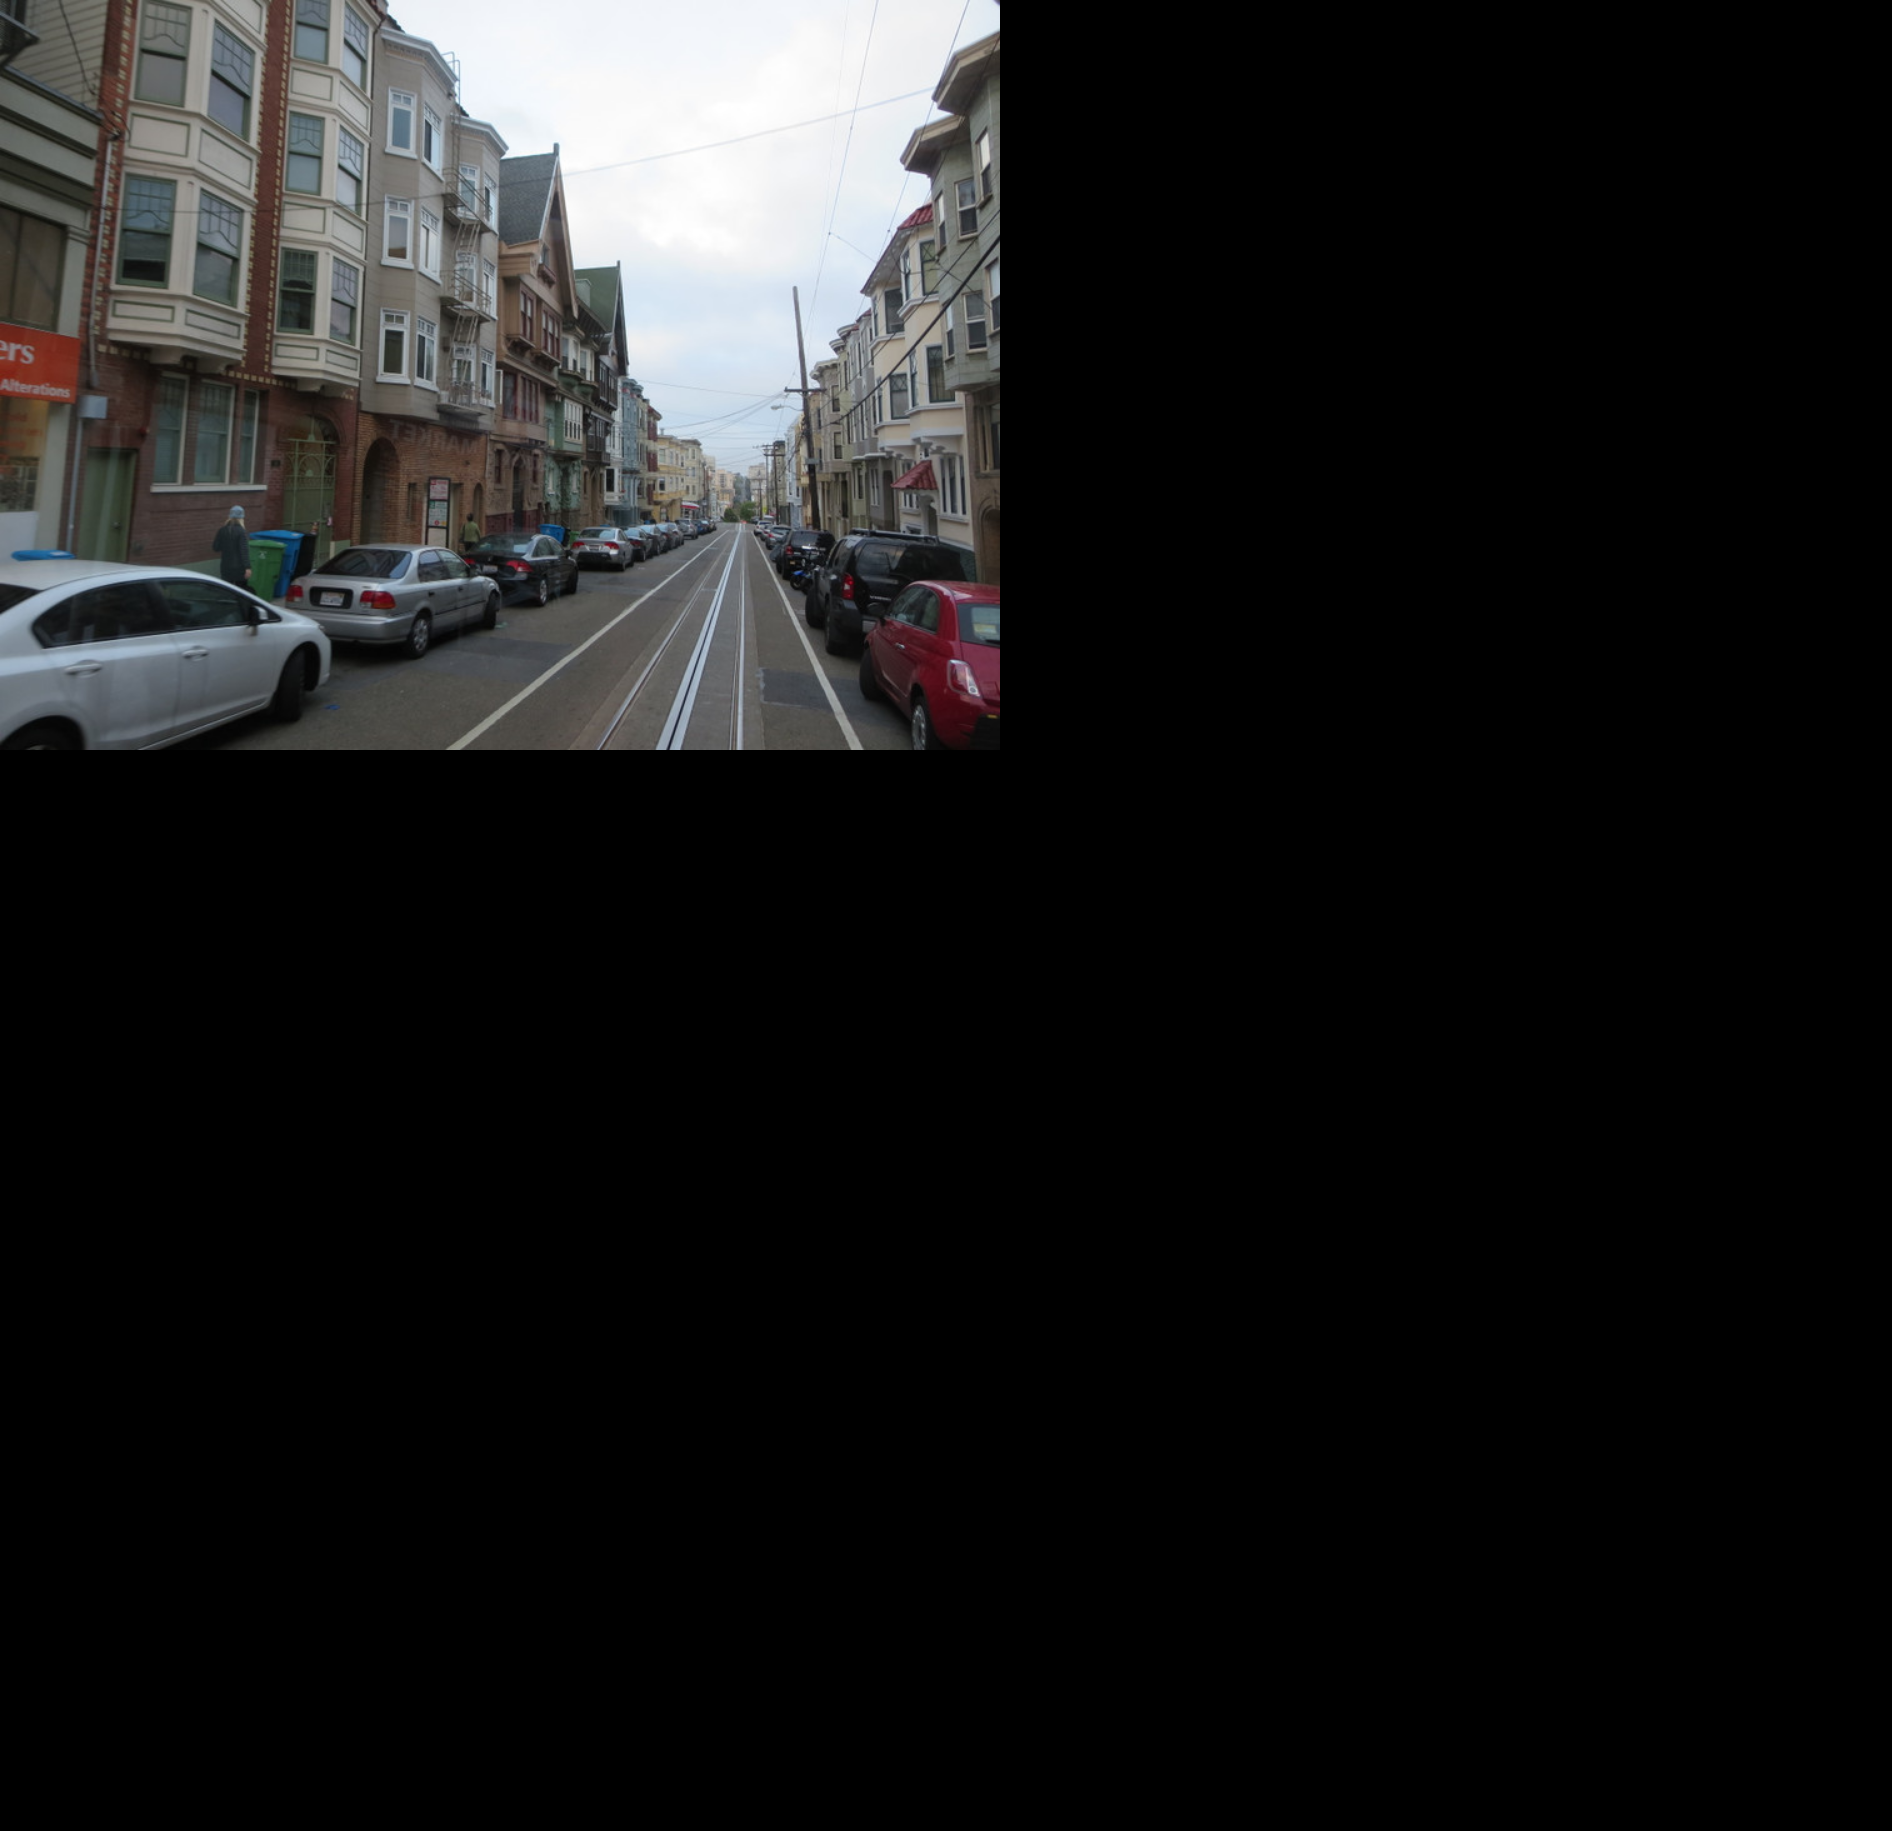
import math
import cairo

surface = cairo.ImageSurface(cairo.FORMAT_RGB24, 1892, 1831)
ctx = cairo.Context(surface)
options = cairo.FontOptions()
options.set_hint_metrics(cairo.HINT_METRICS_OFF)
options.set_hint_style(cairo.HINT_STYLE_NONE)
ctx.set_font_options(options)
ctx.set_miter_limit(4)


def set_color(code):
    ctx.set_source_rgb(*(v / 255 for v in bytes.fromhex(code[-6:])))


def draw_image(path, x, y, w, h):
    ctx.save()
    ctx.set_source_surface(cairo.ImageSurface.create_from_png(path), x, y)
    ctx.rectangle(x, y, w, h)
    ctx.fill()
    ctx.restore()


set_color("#000000")
ctx.paint()
draw_image("assets/img1.png", 0, 0, 1000, 750)
surface.write_to_png("output.png")
